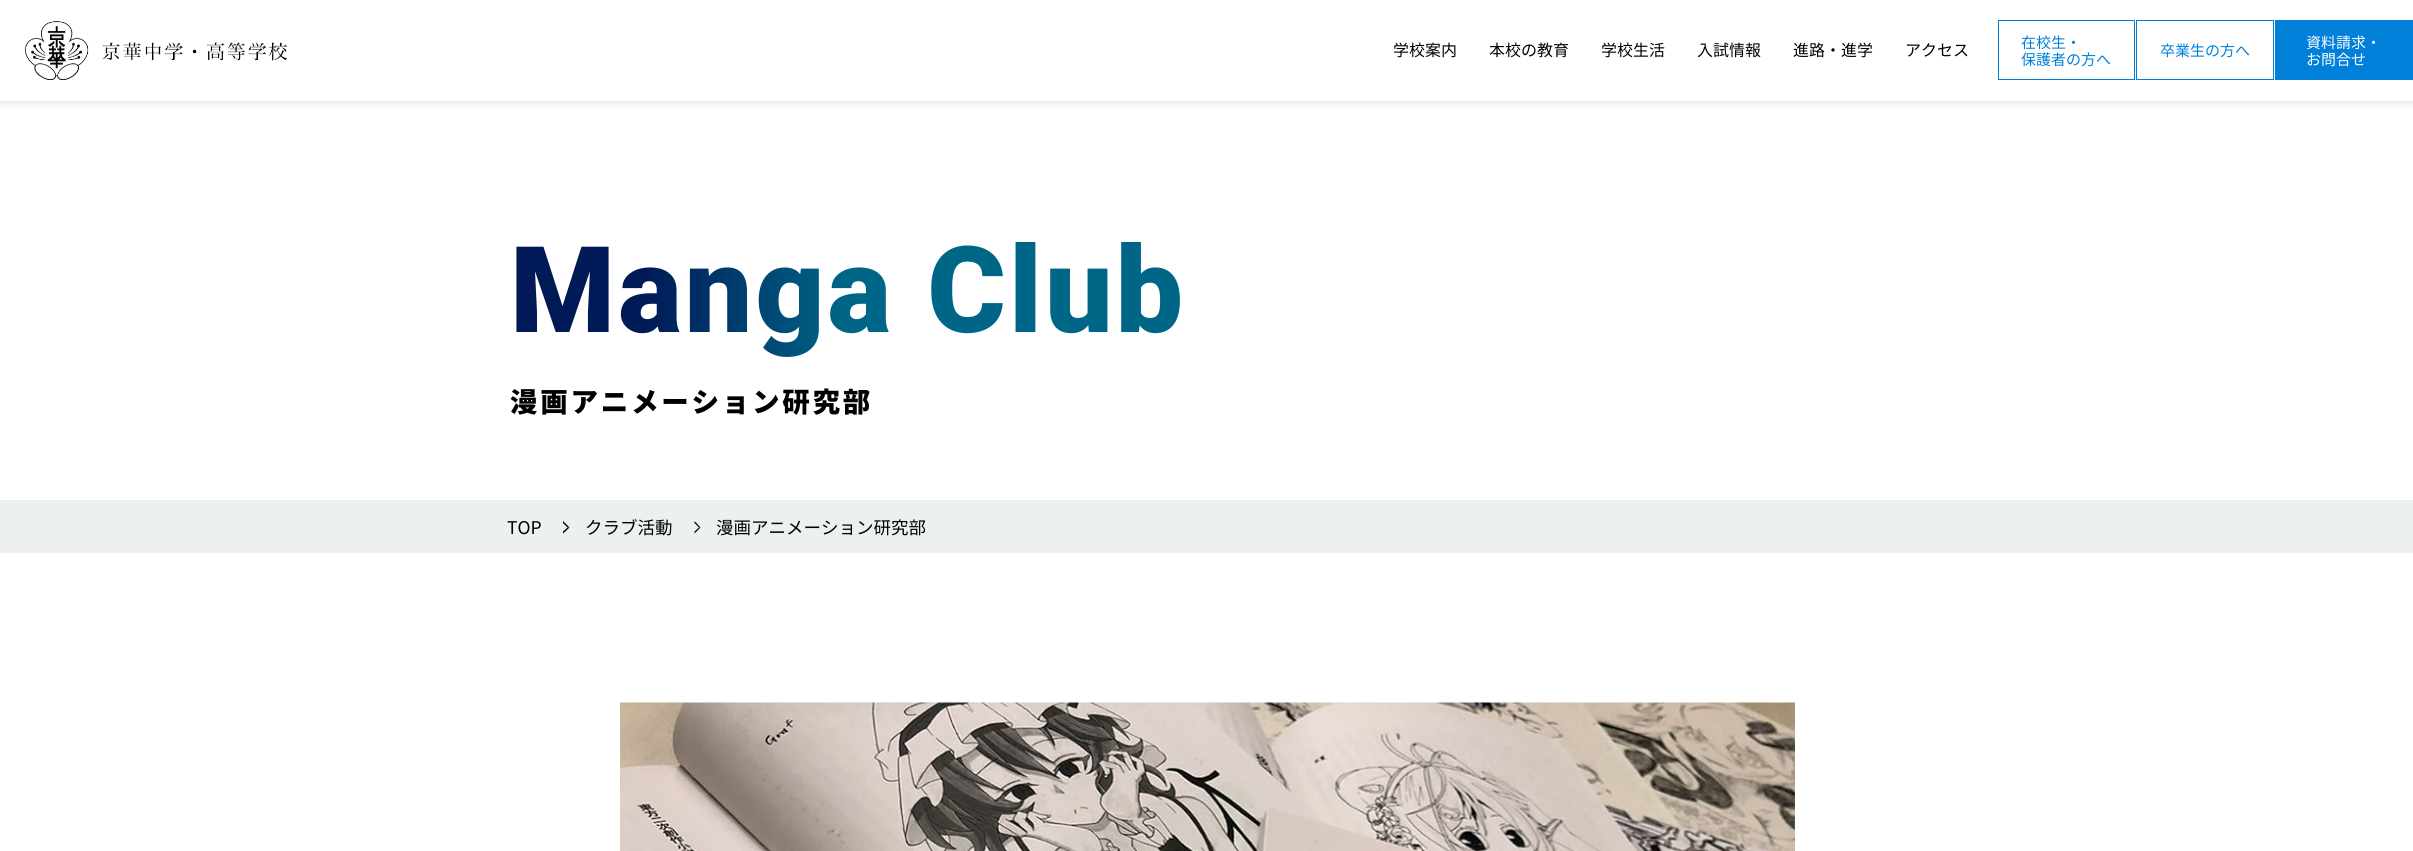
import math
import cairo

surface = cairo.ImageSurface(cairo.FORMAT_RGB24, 2413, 851)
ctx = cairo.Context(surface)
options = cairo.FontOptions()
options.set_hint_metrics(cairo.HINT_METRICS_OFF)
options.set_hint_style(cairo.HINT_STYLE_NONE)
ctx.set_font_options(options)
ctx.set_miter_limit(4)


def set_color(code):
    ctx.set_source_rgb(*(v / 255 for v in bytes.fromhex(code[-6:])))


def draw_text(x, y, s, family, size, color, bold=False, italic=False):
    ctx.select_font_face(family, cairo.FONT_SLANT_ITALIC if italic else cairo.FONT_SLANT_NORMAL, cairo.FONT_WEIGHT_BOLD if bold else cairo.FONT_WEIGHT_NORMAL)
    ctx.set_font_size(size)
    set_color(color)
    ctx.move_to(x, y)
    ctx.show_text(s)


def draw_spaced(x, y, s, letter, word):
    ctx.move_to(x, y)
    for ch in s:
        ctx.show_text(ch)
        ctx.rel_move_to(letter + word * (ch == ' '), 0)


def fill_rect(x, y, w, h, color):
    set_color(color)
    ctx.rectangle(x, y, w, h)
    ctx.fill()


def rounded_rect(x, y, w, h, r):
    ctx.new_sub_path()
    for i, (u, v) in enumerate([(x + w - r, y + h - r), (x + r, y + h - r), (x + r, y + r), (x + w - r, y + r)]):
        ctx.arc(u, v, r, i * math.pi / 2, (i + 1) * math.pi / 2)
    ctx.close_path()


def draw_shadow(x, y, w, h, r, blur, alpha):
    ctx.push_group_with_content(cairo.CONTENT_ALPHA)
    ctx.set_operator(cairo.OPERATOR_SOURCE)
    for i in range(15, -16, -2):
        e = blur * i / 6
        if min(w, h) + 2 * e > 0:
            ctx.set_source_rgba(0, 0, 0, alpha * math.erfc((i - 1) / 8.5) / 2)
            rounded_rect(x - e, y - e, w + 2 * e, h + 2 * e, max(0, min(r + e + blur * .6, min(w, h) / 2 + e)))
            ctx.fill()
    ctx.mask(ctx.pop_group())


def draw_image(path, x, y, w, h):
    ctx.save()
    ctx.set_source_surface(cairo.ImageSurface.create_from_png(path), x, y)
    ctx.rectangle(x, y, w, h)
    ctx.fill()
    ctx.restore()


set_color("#ffffff")
ctx.paint()
ctx.save()
ctx.rectangle(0, 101, 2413, 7)
ctx.clip()
set_color("#000000")
draw_shadow(0, 0, 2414, 101, 0, 6, 0.15)
ctx.restore()
draw_image("assets/img1.png", 25, 21, 263, 59)
draw_text(1393, 56, "学校案内", "Noto Sans JP", 16, "#000000")
draw_text(1489, 56, "本校の教育", "Noto Sans JP", 16, "#000000")
draw_text(1601, 56, "学校生活", "Noto Sans JP", 16, "#000000")
draw_text(1697, 56, "入試情報", "Noto Sans JP", 16, "#000000")
draw_text(1793, 56, "進路・進学", "Noto Sans JP", 16, "#000000")
draw_text(1905, 56, "アクセス", "Noto Sans JP", 16, "#000000")
ctx.rectangle(1998.5, 20.5, 136, 59)
set_color("#0080d9")
ctx.set_line_width(1)
ctx.stroke()
draw_text(2021, 48, "在校生・", "Noto Sans JP", 15, "#0080d9")
draw_text(2021, 65, "保護者の方へ", "Noto Sans JP", 15, "#0080d9")
ctx.rectangle(2136.5, 20.5, 137, 59)
ctx.stroke()
draw_text(2160, 56, "卒業生の方へ", "Noto Sans JP", 15, "#0080d9")
fill_rect(2275, 20, 138, 60, "#0080d9")
draw_text(2306, 48, "資料請求・", "Noto Sans JP", 15, "#ffffff")
draw_text(2306, 65, "お問合せ", "Noto Sans JP", 15, "#ffffff")
ctx.select_font_face("Roboto Black")
ctx.set_font_size(120)
gradient = cairo.LinearGradient(1186, 292, 507, 292)
gradient.add_color_stop_rgba(0.5, 0, 0.4, 0.529, 1)
gradient.add_color_stop_rgba(0.8, 0, 0.098, 0.341, 1)
ctx.set_source(gradient)
draw_spaced(510, 332, "Manga Club", 3, 0)
ctx.select_font_face("Noto Sans JP Black")
ctx.set_font_size(27.5)
set_color("#000000")
draw_spaced(510, 412, "漫画アニメーション研究部", 2.75, 0)
fill_rect(0, 500, 2413, 53, "#edf0f0")
draw_text(507, 534, "TOP", "Noto Sans JP", 17.5, "#000000")
ctx.new_path()
ctx.move_to(563, 521)
ctx.line_to(569.5, 527.5)
ctx.line_to(567.5, 527.5)
ctx.line_to(563, 523)
ctx.close_path()
ctx.fill()
ctx.new_path()
ctx.move_to(569.5, 527.5)
ctx.line_to(563, 533.5)
ctx.line_to(563, 531.5)
ctx.line_to(567.5, 527.5)
ctx.close_path()
ctx.fill()
draw_text(585, 534, "クラブ活動", "Noto Sans JP", 17.5, "#000000")
ctx.new_path()
ctx.move_to(694.5, 521)
ctx.line_to(700.5, 527.5)
ctx.line_to(699, 527.5)
ctx.line_to(694.5, 523)
ctx.close_path()
ctx.fill()
ctx.new_path()
ctx.move_to(700.5, 527.5)
ctx.line_to(694.5, 533.5)
ctx.line_to(694.5, 531.5)
ctx.line_to(699, 527.5)
ctx.close_path()
ctx.fill()
draw_text(716, 534, "漫画アニメーション研究部", "Noto Sans JP", 17.5, "#000000")
draw_image("assets/img2.png", 620, 702, 1175, 149)
surface.write_to_png("output.png")
